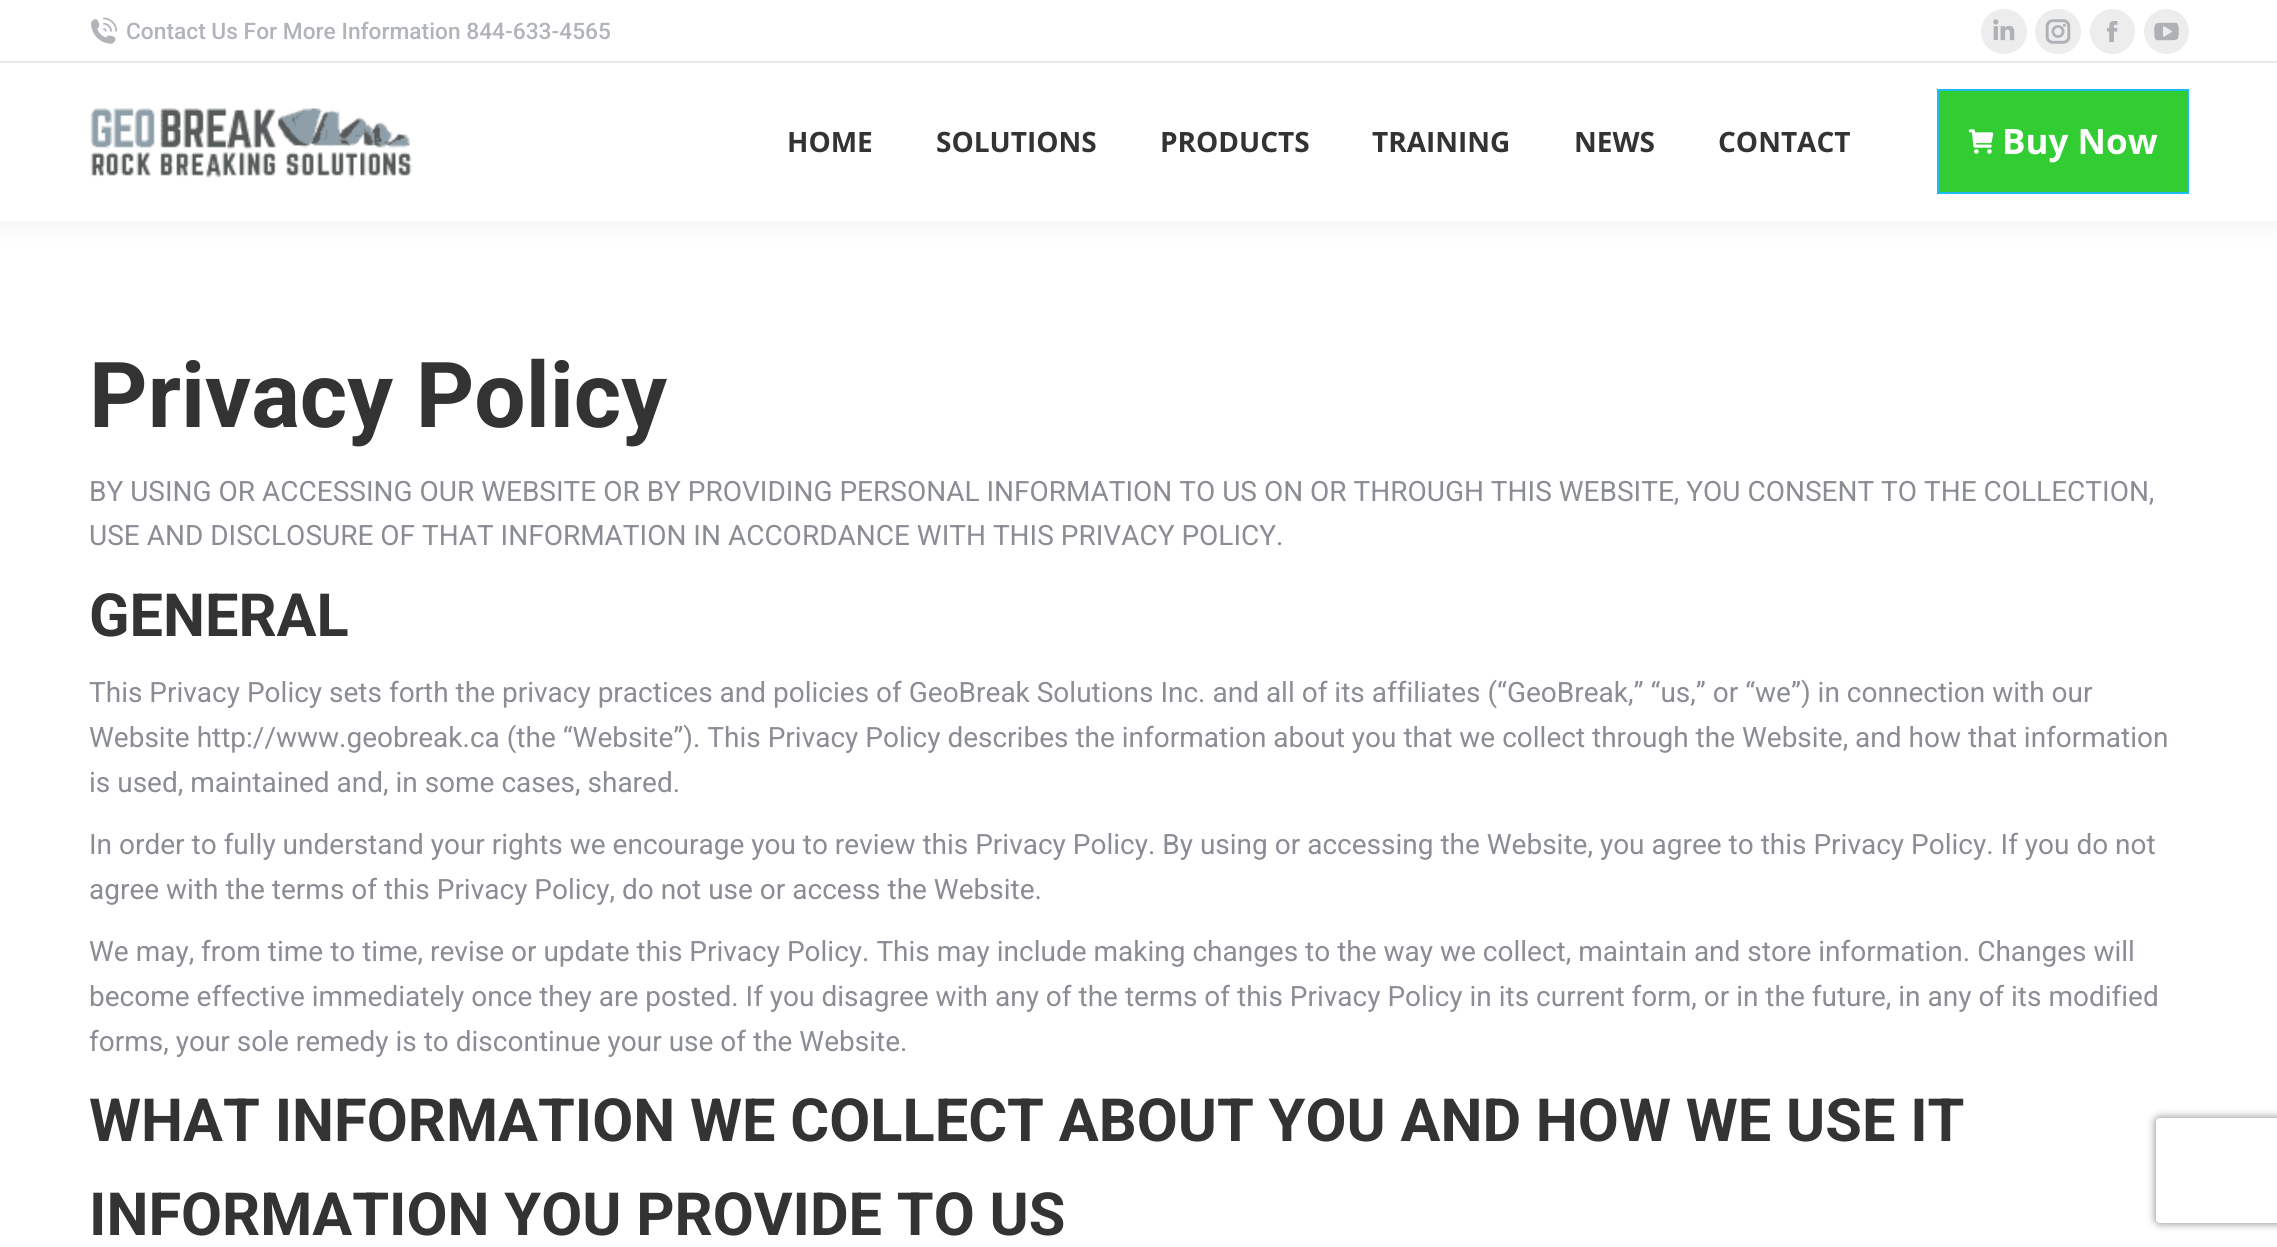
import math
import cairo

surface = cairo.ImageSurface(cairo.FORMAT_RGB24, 2277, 1247)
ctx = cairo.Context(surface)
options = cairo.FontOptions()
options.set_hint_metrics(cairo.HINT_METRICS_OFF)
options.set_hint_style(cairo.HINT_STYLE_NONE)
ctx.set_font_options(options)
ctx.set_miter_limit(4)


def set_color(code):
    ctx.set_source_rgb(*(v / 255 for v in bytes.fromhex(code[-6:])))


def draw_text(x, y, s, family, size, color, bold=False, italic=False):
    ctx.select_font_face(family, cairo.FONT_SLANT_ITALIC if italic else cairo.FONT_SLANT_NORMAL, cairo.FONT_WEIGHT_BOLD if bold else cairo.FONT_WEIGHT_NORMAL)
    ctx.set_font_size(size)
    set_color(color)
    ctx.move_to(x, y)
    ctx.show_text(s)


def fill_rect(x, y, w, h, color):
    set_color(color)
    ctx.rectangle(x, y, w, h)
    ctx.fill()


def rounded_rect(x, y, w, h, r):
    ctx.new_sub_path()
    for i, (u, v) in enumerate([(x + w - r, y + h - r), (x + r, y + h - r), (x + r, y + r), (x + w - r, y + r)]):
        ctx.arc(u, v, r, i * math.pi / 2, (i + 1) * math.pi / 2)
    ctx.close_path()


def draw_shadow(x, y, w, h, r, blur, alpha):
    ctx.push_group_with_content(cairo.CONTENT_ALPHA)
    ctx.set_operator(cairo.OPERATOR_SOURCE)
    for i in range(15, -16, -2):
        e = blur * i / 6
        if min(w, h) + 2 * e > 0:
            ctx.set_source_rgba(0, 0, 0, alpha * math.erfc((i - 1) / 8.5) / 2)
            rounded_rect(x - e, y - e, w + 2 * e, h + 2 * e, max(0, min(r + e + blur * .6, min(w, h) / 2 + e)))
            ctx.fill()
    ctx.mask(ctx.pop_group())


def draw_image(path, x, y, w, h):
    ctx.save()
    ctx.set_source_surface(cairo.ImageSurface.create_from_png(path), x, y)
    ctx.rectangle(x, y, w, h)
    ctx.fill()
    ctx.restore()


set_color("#ffffff")
ctx.paint()
set_color("#000000")
draw_shadow(-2, -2, 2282, 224, 0, 13, 0.07)
fill_rect(0, 0, 2277, 221, "#ffffff")
draw_image("assets/img1.png", 91, 17, 27, 27)
draw_text(126, 39, "Contact Us For More Information 844-633-4565", "Roboto Medium", 22.75, "#b1b4b8")
set_color("#ededed")
rounded_rect(1981, 9, 46, 45, 22.5)
ctx.fill()
draw_image("assets/img2.png", 1993, 19, 22, 22)
rounded_rect(2035, 9, 46, 45, 22.5)
ctx.fill()
draw_image("assets/img3.png", 2045, 19, 26, 25)
ctx.arc(2112.5, 31.5, 22.5, 0, 2 * math.pi)
ctx.fill()
draw_image("assets/img4.png", 2107, 21, 11, 21)
ctx.arc(2166.5, 31.5, 22.5, 0, 2 * math.pi)
ctx.fill()
draw_image("assets/img5.png", 2154, 22, 25, 19)
fill_rect(0, 61, 2277, 2, "#e9e9e9")
draw_image("assets/img6.png", 90, 108, 322, 70)
draw_text(787, 152, "HOME", "Open Sans", 28, "#333333", bold=True)
draw_text(936, 152, "SOLUTIONS", "Open Sans", 28, "#333333", bold=True)
draw_text(1160, 152, "PRODUCTS", "Open Sans", 28, "#333333", bold=True)
draw_text(1372, 152, "TRAINING", "Open Sans", 28, "#333333", bold=True)
draw_text(1574, 152, "NEWS", "Open Sans", 28, "#333333", bold=True)
draw_text(1718, 152, "CONTACT", "Open Sans", 28, "#333333", bold=True)
set_color("#32cd32")
ctx.rectangle(1938, 90, 250, 103)
ctx.fill_preserve()
set_color("#1ebbf0")
ctx.stroke()
draw_image("assets/img7.png", 1968, 129, 26, 25)
draw_text(2002, 154, "Buy Now", "Open Sans", 35, "#ffffff", bold=True)
draw_text(89, 427, "Privacy Policy", "Roboto", 91, "#333333", bold=True)
draw_text(89, 501, "BY USING OR ACCESSING OUR WEBSITE OR BY PROVIDING PERSONAL INFORMATION TO US ON OR THROUGH THIS WEBSITE, YOU CONSENT TO THE COLLECTION,", "Roboto", 28, "#8b8d94")
draw_text(89, 545, "USE AND DISCLOSURE OF THAT INFORMATION IN ACCORDANCE WITH THIS PRIVACY POLICY.", "Roboto", 28, "#8b8d94")
draw_text(89, 636, "GENERAL", "Roboto", 59.5, "#333333", bold=True)
draw_text(89, 702, "This Privacy Policy sets forth the privacy practices and policies of GeoBreak Solutions Inc. and all of its affiliates (“GeoBreak,” “us,” or “we”) in connection with our", "Roboto", 28, "#8b8d94")
draw_text(89, 747, "Website http://www.geobreak.ca (the “Website”). This Privacy Policy describes the information about you that we collect through the Website, and how that information", "Roboto", 28, "#8b8d94")
draw_text(89, 792, "is used, maintained and, in some cases, shared.", "Roboto", 28, "#8b8d94")
draw_text(89, 854, "In order to fully understand your rights we encourage you to review this Privacy Policy. By using or accessing the Website, you agree to this Privacy Policy. If you do not", "Roboto", 28, "#8b8d94")
draw_text(89, 899, "agree with the terms of this Privacy Policy, do not use or access the Website.", "Roboto", 28, "#8b8d94")
draw_text(89, 961, "We may, from time to time, revise or update this Privacy Policy. This may include making changes to the way we collect, maintain and store information. Changes will", "Roboto", 28, "#8b8d94")
draw_text(89, 1006, "become effective immediately once they are posted. If you disagree with any of the terms of this Privacy Policy in its current form, or in the future, in any of its modified", "Roboto", 28, "#8b8d94")
draw_text(89, 1051, "forms, your sole remedy is to discontinue your use of the Website.", "Roboto", 28, "#8b8d94")
draw_text(89, 1141, "WHAT INFORMATION WE COLLECT ABOUT YOU AND HOW WE USE IT", "Roboto", 59.5, "#333333", bold=True)
draw_text(89, 1235, "INFORMATION YOU PROVIDE TO US", "Roboto", 59.5, "#333333", bold=True)
ctx.save()
ctx.set_fill_rule(cairo.FILL_RULE_EVEN_ODD)
ctx.new_path()
ctx.move_to(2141, 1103)
ctx.line_to(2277, 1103)
ctx.line_to(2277, 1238)
ctx.line_to(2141, 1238)
ctx.close_path()
ctx.move_to(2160, 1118)
ctx.line_to(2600, 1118)
ctx.curve_to(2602, 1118, 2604, 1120, 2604, 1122)
ctx.line_to(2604, 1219)
ctx.curve_to(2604, 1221, 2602, 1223, 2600, 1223)
ctx.line_to(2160, 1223)
ctx.curve_to(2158, 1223, 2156, 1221, 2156, 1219)
ctx.line_to(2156, 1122)
ctx.curve_to(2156, 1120, 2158, 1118, 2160, 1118)
ctx.close_path()
ctx.clip()
set_color("#808080")
draw_shadow(2156, 1118, 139, 105, 4, 4.5, 1)
ctx.restore()
surface.write_to_png("output.png")
